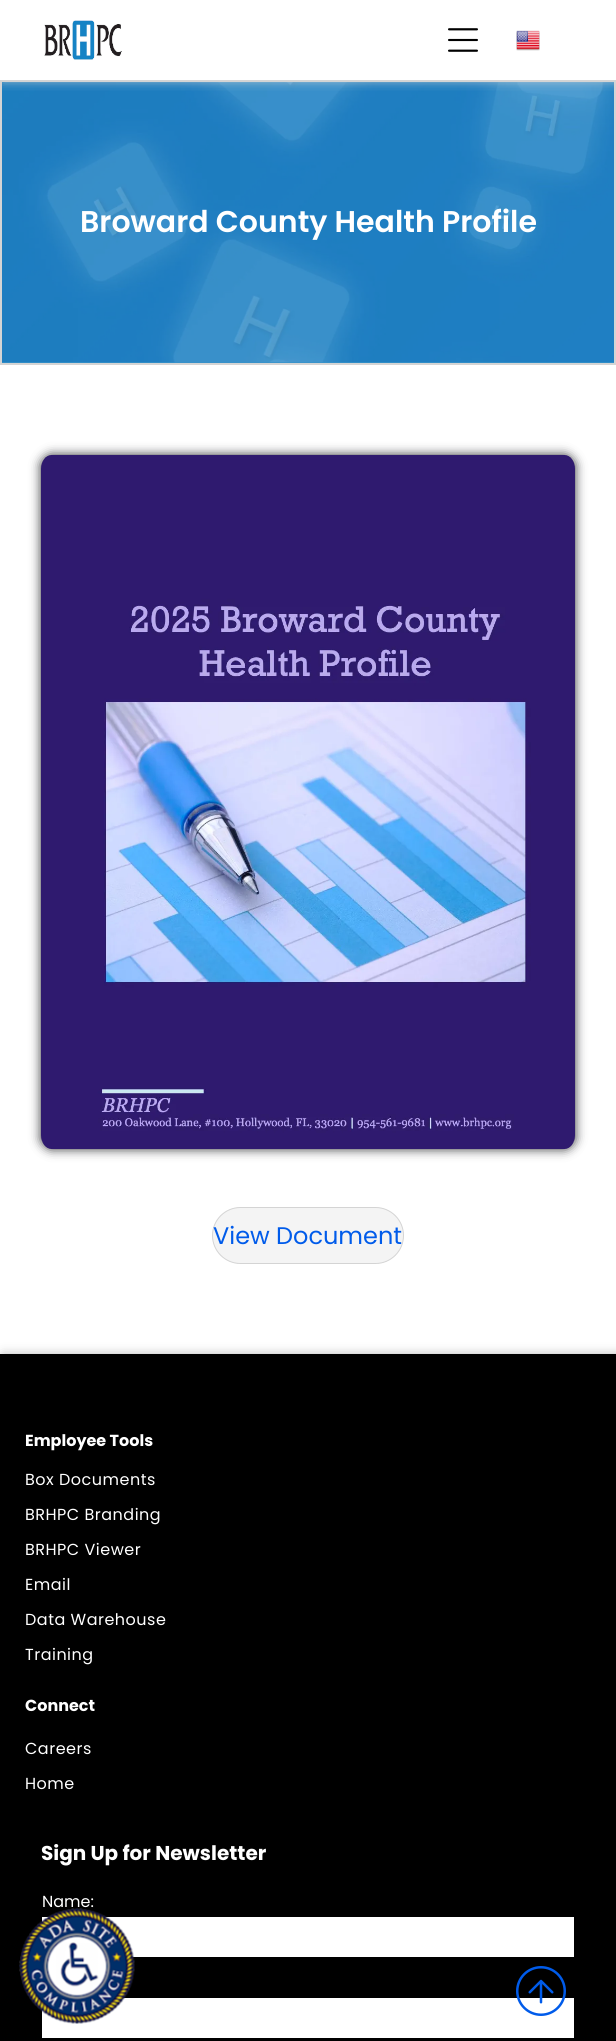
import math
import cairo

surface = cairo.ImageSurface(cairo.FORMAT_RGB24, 616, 2041)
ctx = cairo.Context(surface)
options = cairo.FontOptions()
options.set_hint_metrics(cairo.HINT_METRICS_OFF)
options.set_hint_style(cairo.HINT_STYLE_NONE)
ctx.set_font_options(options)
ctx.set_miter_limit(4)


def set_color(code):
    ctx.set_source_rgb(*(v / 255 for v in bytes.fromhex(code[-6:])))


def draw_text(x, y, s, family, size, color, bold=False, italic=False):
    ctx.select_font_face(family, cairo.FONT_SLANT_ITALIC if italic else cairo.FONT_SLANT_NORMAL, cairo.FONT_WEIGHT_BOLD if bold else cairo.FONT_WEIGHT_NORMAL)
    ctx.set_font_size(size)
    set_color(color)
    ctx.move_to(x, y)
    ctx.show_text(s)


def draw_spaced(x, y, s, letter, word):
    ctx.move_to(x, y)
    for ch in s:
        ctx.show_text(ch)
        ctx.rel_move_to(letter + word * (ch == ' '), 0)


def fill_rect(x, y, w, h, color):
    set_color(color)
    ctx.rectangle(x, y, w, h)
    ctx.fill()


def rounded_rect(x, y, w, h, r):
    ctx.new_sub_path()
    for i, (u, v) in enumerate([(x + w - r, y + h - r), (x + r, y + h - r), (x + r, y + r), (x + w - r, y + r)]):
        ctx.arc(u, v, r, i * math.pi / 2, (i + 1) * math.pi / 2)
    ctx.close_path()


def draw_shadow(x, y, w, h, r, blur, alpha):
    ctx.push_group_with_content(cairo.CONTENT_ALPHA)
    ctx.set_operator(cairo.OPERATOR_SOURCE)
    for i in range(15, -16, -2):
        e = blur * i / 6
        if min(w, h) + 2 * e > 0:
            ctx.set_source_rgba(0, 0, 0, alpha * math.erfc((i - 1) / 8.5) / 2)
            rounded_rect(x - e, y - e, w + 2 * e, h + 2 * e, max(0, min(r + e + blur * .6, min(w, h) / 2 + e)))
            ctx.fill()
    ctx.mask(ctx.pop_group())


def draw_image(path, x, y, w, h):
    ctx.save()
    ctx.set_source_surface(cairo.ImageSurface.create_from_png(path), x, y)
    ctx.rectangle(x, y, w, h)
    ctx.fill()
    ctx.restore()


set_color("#ffffff")
ctx.paint()
fill_rect(0, 80, 616, 285, "#d4d4d4")
fill_rect(2, 362, 612, 1, "#3693c8")
draw_image("assets/img4.png", 2, 82, 612, 281)
ctx.save()
ctx.rectangle(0, 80, 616, 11)
ctx.clip()
set_color("#d4d4d4")
draw_shadow(3, 0, 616, 80, 0, 5.5, 1)
ctx.restore()
draw_image("assets/img1.png", 44, 20, 78, 40)
draw_image("assets/img2.png", 448, 28, 30, 24)
draw_image("assets/img3.png", 516, 30, 24, 21)
draw_text(80, 232, "Broward County Health Profile", "Poppins SemiBold", 30, "#ffffff")
set_color("#2d2e32")
draw_shadow(41, 455, 534, 694, 11, 5.5, 1)
draw_image("assets/img5.png", 41, 455, 534, 694)
set_color("#f4f4f4")
rounded_rect(212.5, 1207.5, 191, 56, 28)
ctx.fill_preserve()
set_color("#d4d4d4")
ctx.set_line_width(1)
ctx.stroke()
draw_text(213, 1244, "View Document", "Poppins", 24, "#005bea")
set_color("#000000")
draw_shadow(3, 1354, 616, 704, 0, 5.5, 0.25)
fill_rect(0, 1354, 616, 687, "#000000")
draw_text(25, 1446, "Employee Tools", "Poppins", 16, "#ffffff", bold=True)
ctx.select_font_face("Poppins")
draw_spaced(25, 1485, "Box Documents", 0.5, 0)
draw_spaced(25, 1520, "BRHPC Branding", 0.5, 0)
draw_spaced(25, 1555, "BRHPC Viewer", 0.5, 0)
draw_spaced(25, 1590, "Email", 0.5, 0)
draw_spaced(25, 1625, "Data Warehouse", 0.5, 0)
draw_spaced(25, 1660, "Training", 0.5, 0)
draw_text(25, 1711, "Connect", "Poppins", 16, "#ffffff", bold=True)
ctx.select_font_face("Poppins")
draw_spaced(25, 1754, "Careers", 0.5, 0)
draw_spaced(25, 1789, "Home", 0.5, 0)
draw_text(41, 1860, "Sign Up for Newsletter", "Poppins", 20, "#ffffff", bold=True)
draw_text(42, 1907, "Name:", "Poppins", 16, "#ffffff")
fill_rect(42, 1917, 532, 40, "#ffffff")
fill_rect(42, 1998, 532, 40, "#ffffff")
draw_image("assets/img6.png", 516, 1966, 50, 50)
draw_image("assets/img7.png", 19, 1908, 116, 116)
surface.write_to_png("output.png")
